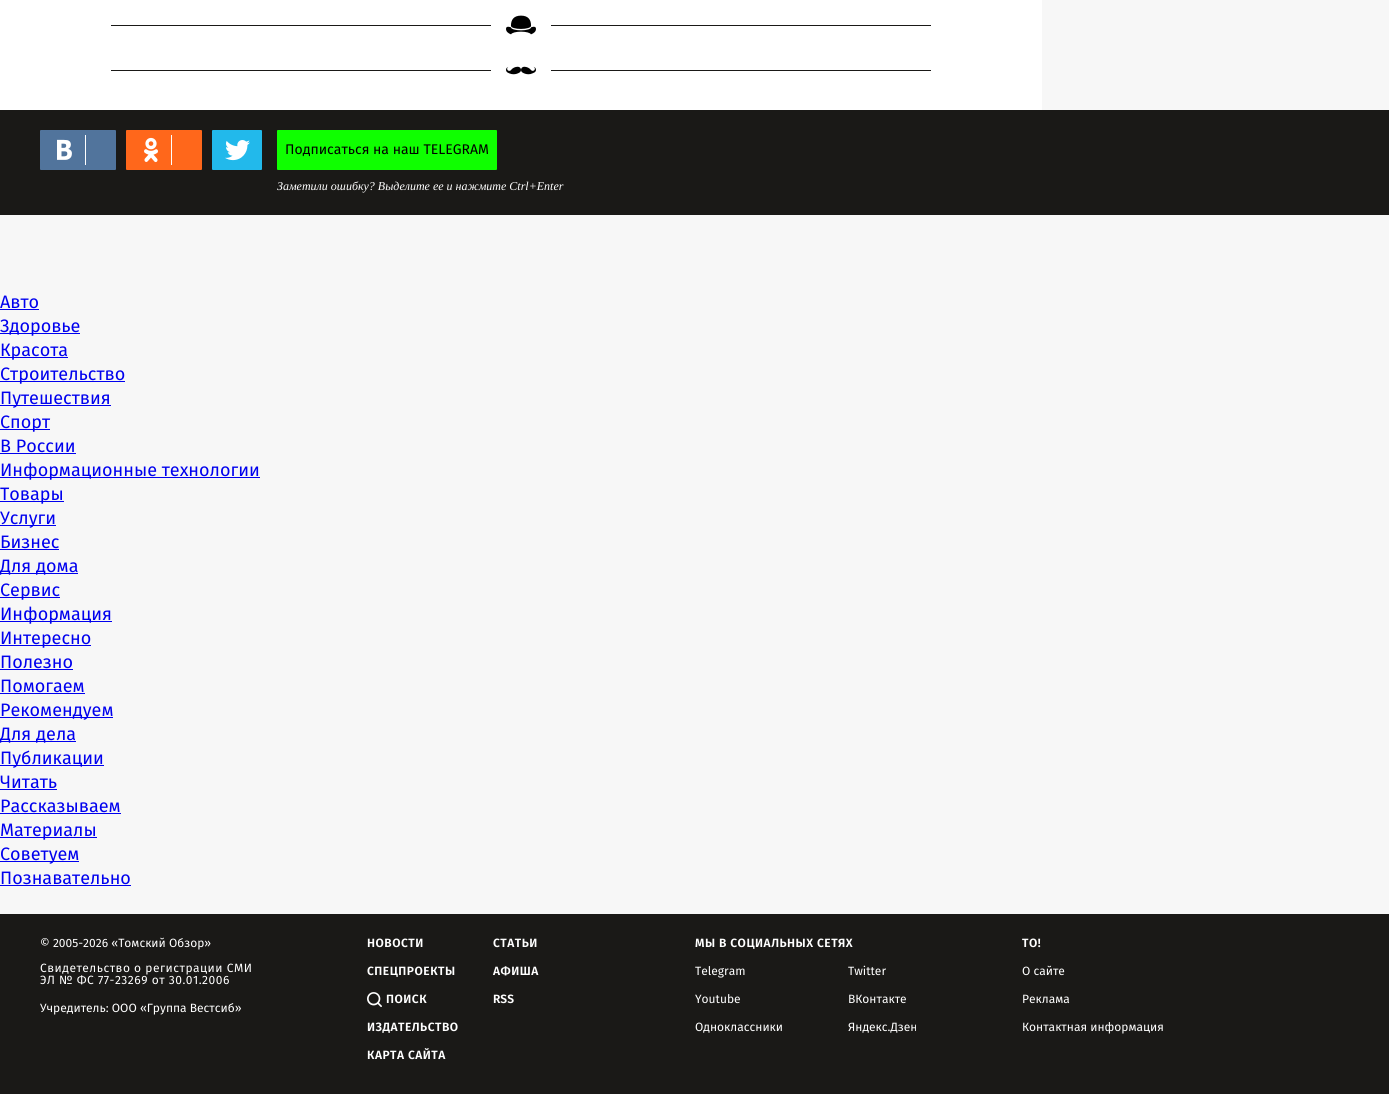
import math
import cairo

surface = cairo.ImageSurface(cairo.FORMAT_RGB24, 1389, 1094)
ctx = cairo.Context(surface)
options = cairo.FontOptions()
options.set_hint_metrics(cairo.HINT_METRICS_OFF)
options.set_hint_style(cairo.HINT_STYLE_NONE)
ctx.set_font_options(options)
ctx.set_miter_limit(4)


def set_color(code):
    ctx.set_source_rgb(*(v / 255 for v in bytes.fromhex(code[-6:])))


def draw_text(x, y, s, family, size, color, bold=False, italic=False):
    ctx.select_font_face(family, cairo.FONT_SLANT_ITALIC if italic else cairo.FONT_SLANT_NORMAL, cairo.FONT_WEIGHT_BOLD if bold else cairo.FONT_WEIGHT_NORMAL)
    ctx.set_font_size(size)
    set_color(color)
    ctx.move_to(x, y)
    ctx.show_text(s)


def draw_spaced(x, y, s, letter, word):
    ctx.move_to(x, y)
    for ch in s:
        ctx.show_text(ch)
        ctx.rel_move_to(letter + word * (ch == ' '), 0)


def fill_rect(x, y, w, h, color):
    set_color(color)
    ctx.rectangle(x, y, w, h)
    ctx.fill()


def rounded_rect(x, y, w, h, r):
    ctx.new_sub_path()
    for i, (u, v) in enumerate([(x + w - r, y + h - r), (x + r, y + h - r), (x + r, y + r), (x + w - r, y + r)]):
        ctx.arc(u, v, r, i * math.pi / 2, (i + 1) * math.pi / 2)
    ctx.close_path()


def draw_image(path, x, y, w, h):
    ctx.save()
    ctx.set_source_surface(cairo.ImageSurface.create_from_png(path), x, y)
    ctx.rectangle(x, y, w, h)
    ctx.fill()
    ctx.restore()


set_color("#f7f7f7")
ctx.paint()
fill_rect(0, 0, 1042, 110, "#ffffff")
draw_image("assets/img1.png", 506, 15, 30, 20)
fill_rect(111, 25, 380, 1, "#1a1917")
fill_rect(551, 25, 380, 1, "#1a1917")
draw_image("assets/img2.png", 506, 66, 30, 9)
fill_rect(111, 70, 380, 1, "#1a1917")
fill_rect(551, 70, 380, 1, "#1a1917")
fill_rect(0, 110, 1389, 105, "#1a1917")
set_color("#51749c")
rounded_rect(40, 130, 76, 40, 1)
ctx.fill()
draw_image("assets/img3.png", 57, 139, 15, 21)
fill_rect(85, 135, 1, 30, "#ffffff")
set_color("#ff671b")
rounded_rect(126, 130, 76, 40, 1)
ctx.fill()
draw_image("assets/img4.png", 144, 137, 14, 26)
fill_rect(171, 135, 1, 30, "#ffffff")
set_color("#22b9eb")
rounded_rect(212, 130, 50, 40, 1)
ctx.fill()
draw_image("assets/img5.png", 225, 140, 25, 21)
set_color("#0fff00")
rounded_rect(277, 130, 220, 40, 1)
ctx.fill()
draw_text(285, 154, "Подписаться на наш TELEGRAM", "Fira Sans", 14, "#000000")
draw_text(277, 190, "Заметили ошибку? Выделите ее и нажмите Ctrl+Enter", "Liberation Serif", 12, "#ffffff", italic=True)
draw_text(0, 308, "Авто", "Fira Sans", 18, "#0000ee")
fill_rect(0, 309, 39, 1, "#0000ee")
fill_rect(0, 333, 80, 1, "#0000ee")
draw_text(0, 332, "Здоровье", "Fira Sans", 18, "#0000ee")
fill_rect(0, 357, 68, 1, "#0000ee")
draw_text(0, 356, "Красота", "Fira Sans", 18, "#0000ee")
fill_rect(0, 381, 125, 1, "#0000ee")
draw_text(0, 380, "Строительство", "Fira Sans", 18, "#0000ee")
fill_rect(0, 405, 111, 1, "#0000ee")
draw_text(0, 404, "Путешествия", "Fira Sans", 18, "#0000ee")
fill_rect(0, 429, 50, 1, "#0000ee")
draw_text(0, 428, "Спорт", "Fira Sans", 18, "#0000ee")
draw_text(0, 452, "В России", "Fira Sans", 18, "#0000ee")
fill_rect(0, 453, 76, 1, "#0000ee")
fill_rect(0, 477, 260, 1, "#0000ee")
draw_text(0, 476, "Информационные технологии", "Fira Sans", 18, "#0000ee")
fill_rect(0, 501, 64, 1, "#0000ee")
draw_text(0, 500, "Товары", "Fira Sans", 18, "#0000ee")
fill_rect(0, 525, 56, 1, "#0000ee")
draw_text(0, 524, "Услуги", "Fira Sans", 18, "#0000ee")
draw_text(0, 548, "Бизнес", "Fira Sans", 18, "#0000ee")
fill_rect(0, 549, 59, 1, "#0000ee")
fill_rect(0, 573, 78, 1, "#0000ee")
draw_text(0, 572, "Для дома", "Fira Sans", 18, "#0000ee")
fill_rect(0, 597, 60, 1, "#0000ee")
draw_text(0, 596, "Сервис", "Fira Sans", 18, "#0000ee")
fill_rect(0, 621, 112, 1, "#0000ee")
draw_text(0, 620, "Информация", "Fira Sans", 18, "#0000ee")
fill_rect(0, 645, 91, 1, "#0000ee")
draw_text(0, 644, "Интересно", "Fira Sans", 18, "#0000ee")
draw_text(0, 668, "Полезно", "Fira Sans", 18, "#0000ee")
fill_rect(0, 669, 73, 1, "#0000ee")
draw_text(0, 692, "Помогаем", "Fira Sans", 18, "#0000ee")
fill_rect(0, 693, 85, 1, "#0000ee")
fill_rect(0, 717, 113, 1, "#0000ee")
draw_text(0, 716, "Рекомендуем", "Fira Sans", 18, "#0000ee")
fill_rect(0, 741, 76, 1, "#0000ee")
draw_text(0, 740, "Для дела", "Fira Sans", 18, "#0000ee")
fill_rect(0, 765, 104, 1, "#0000ee")
draw_text(0, 764, "Публикации", "Fira Sans", 18, "#0000ee")
draw_text(0, 788, "Читать", "Fira Sans", 18, "#0000ee")
fill_rect(0, 789, 57, 1, "#0000ee")
draw_text(0, 812, "Рассказываем", "Fira Sans", 18, "#0000ee")
fill_rect(0, 813, 121, 1, "#0000ee")
fill_rect(0, 837, 97, 1, "#0000ee")
draw_text(0, 836, "Материалы", "Fira Sans", 18, "#0000ee")
fill_rect(0, 861, 79, 1, "#0000ee")
draw_text(0, 860, "Советуем", "Fira Sans", 18, "#0000ee")
draw_text(0, 884, "Познавательно", "Fira Sans", 18, "#0000ee")
fill_rect(0, 885, 131, 1, "#0000ee")
fill_rect(0, 914, 1389, 180, "#1a1917")
draw_text(40, 947, "© 2005-2026 «Томский Обзор»", "Fira Sans", 12, "#ffffff")
draw_spaced(40, 972, "Свидетельство о регистрации СМИ", 0.5, 0)
draw_spaced(40, 984, "ЭЛ № ФС 77-23269 от 30.01.2006", 0.5, 0)
draw_text(40, 1012, "Учредитель: ООО «Группа Вестсиб»", "Fira Sans", 12, "#ffffff")
ctx.select_font_face("Fira Sans SemiBold")
draw_spaced(367, 947, "НОВОСТИ", 0.5, 0)
draw_spaced(493, 947, "СТАТЬИ", 0.5, 0)
draw_spaced(367, 975, "СПЕЦПРОЕКТЫ", 0.5, 0)
draw_spaced(493, 975, "АФИША", 0.5, 0)
draw_image("assets/img6.png", 367, 992, 15, 15)
draw_spaced(386, 1003, "ПОИСК", 0.5, 0)
draw_text(493, 1003, "RSS", "Fira Sans SemiBold", 12, "#ffffff")
draw_spaced(367, 1031, "ИЗДАТЕЛЬСТВО", 0.5, 0)
draw_spaced(367, 1059, "КАРТА САЙТА", 0.5, 0)
draw_spaced(695, 947, "МЫ В СОЦИАЛЬНЫХ СЕТЯХ", 0.5, 0)
draw_text(695, 975, "Telegram", "Fira Sans", 12, "#ffffff")
draw_text(848, 975, "Twitter", "Fira Sans", 12, "#ffffff")
draw_text(695, 1003, "Youtube", "Fira Sans", 12, "#ffffff")
draw_text(848, 1003, "ВКонтакте", "Fira Sans", 12, "#ffffff")
draw_text(695, 1031, "Одноклассники", "Fira Sans", 12, "#ffffff")
draw_text(848, 1031, "Яндекс.Дзен", "Fira Sans", 12, "#ffffff")
ctx.select_font_face("Fira Sans SemiBold")
draw_spaced(1022, 947, "ТО!", 0.5, 0)
draw_text(1022, 975, "О сайте", "Fira Sans", 12, "#ffffff")
draw_text(1022, 1003, "Реклама", "Fira Sans", 12, "#ffffff")
draw_text(1022, 1031, "Контактная информация", "Fira Sans", 12, "#ffffff")
surface.write_to_png("output.png")
